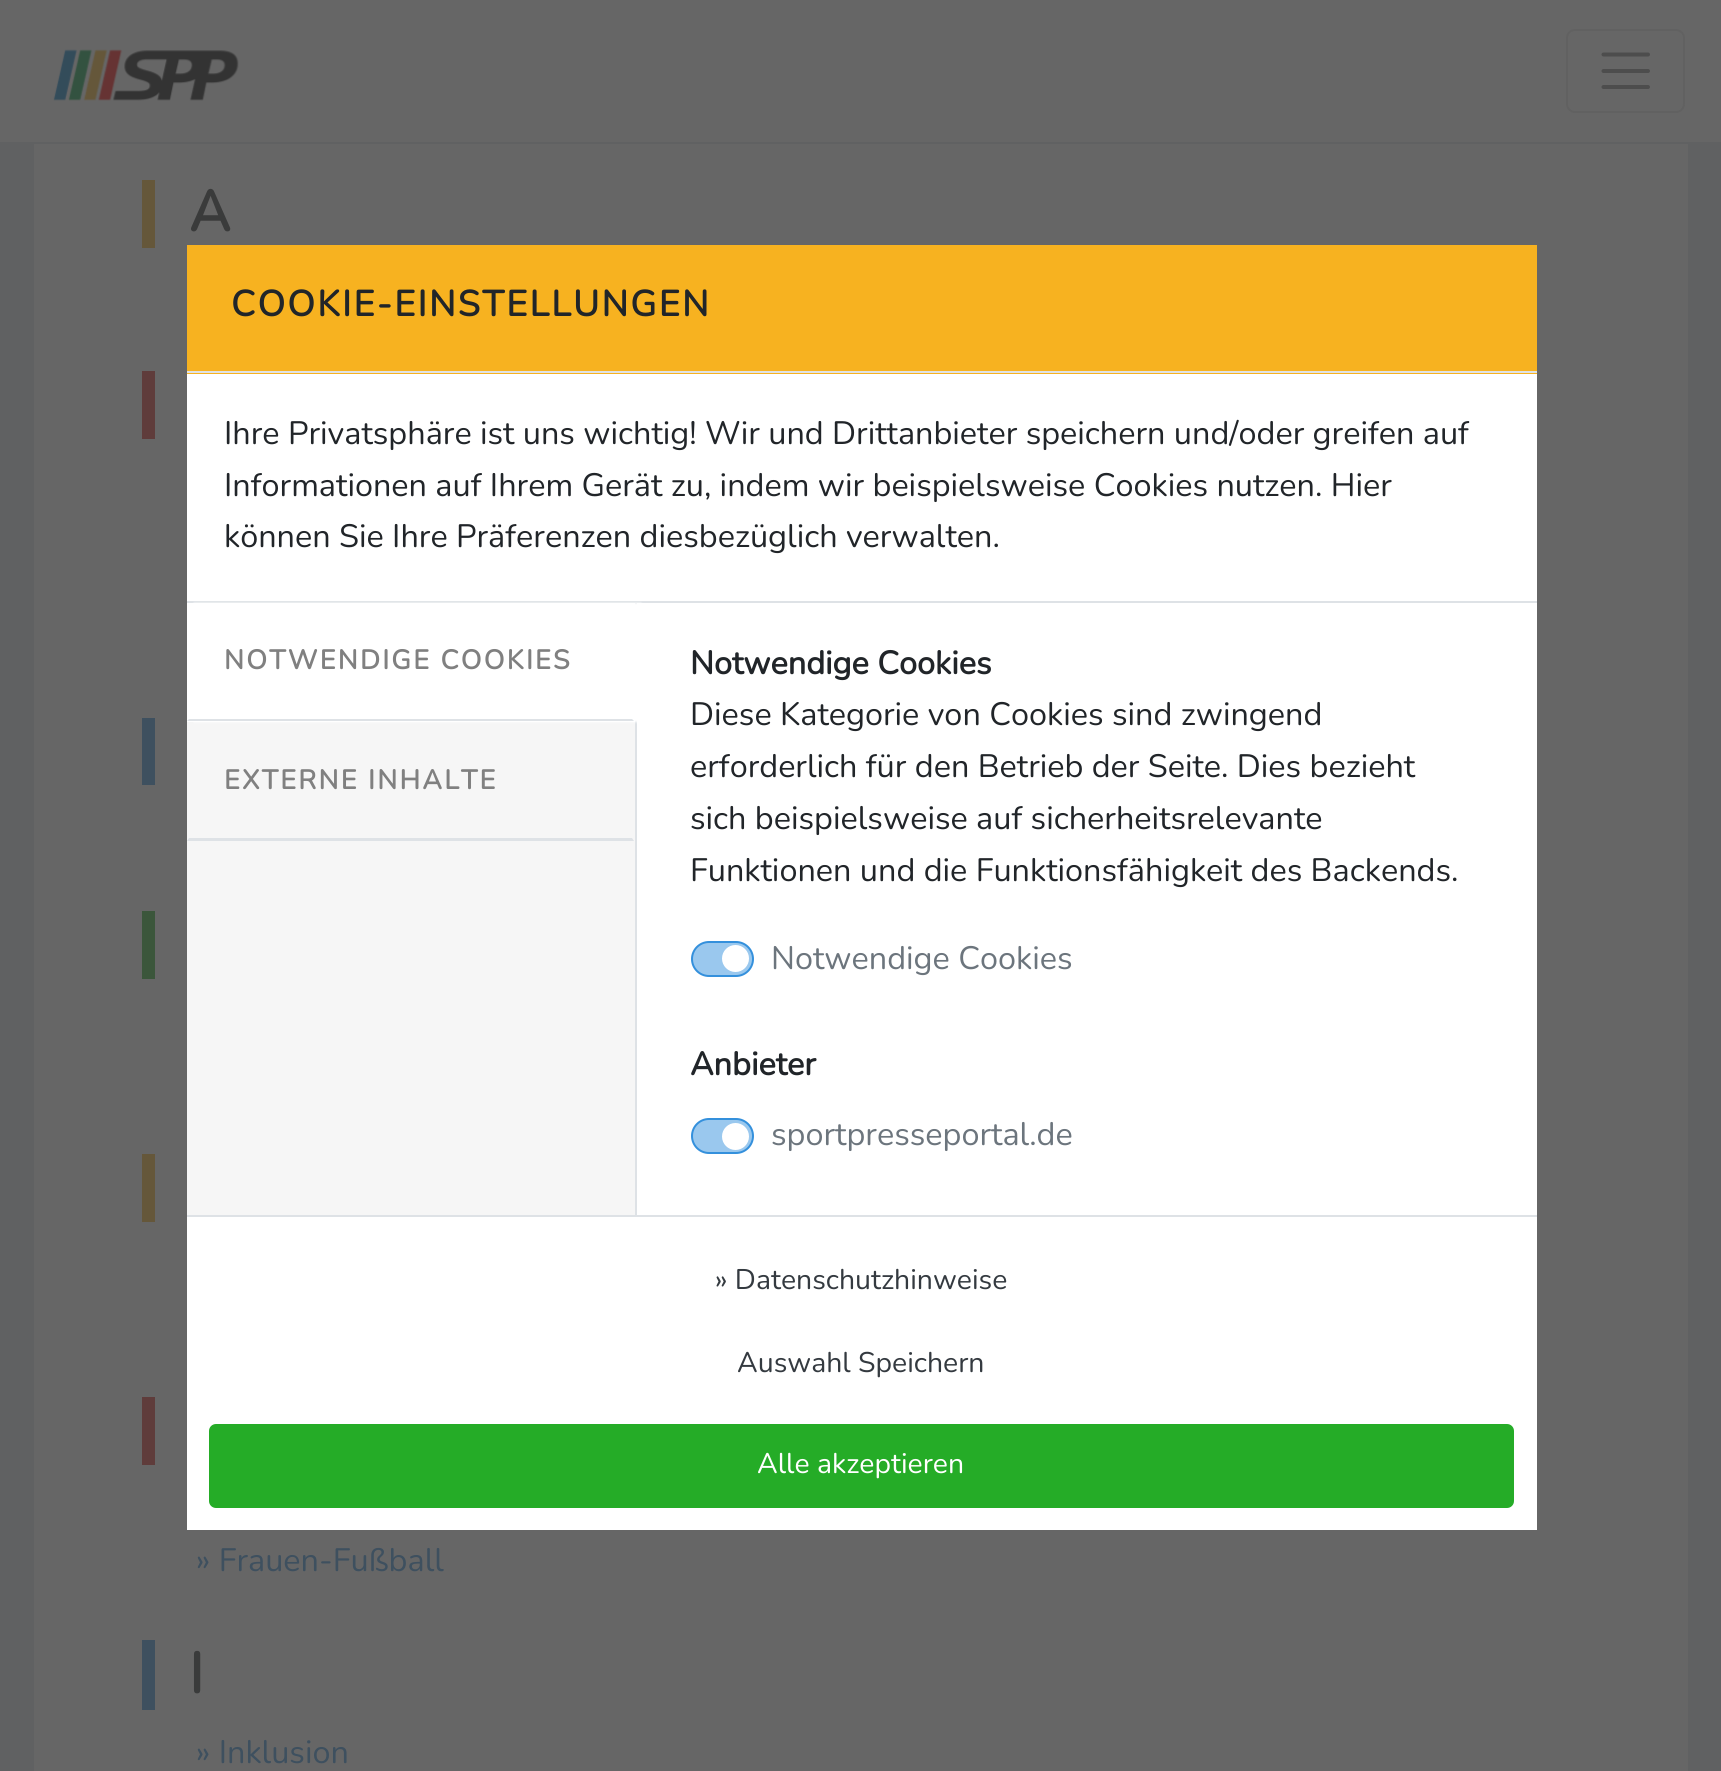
import math
import cairo

surface = cairo.ImageSurface(cairo.FORMAT_RGB24, 1721, 1771)
ctx = cairo.Context(surface)
options = cairo.FontOptions()
options.set_hint_metrics(cairo.HINT_METRICS_OFF)
options.set_hint_style(cairo.HINT_STYLE_NONE)
ctx.set_font_options(options)
ctx.set_miter_limit(4)


def set_color(code):
    ctx.set_source_rgb(*(v / 255 for v in bytes.fromhex(code[-6:])))


def draw_text(x, y, s, family, size, color, bold=False, italic=False):
    ctx.select_font_face(family, cairo.FONT_SLANT_ITALIC if italic else cairo.FONT_SLANT_NORMAL, cairo.FONT_WEIGHT_BOLD if bold else cairo.FONT_WEIGHT_NORMAL)
    ctx.set_font_size(size)
    set_color(color)
    ctx.move_to(x, y)
    ctx.show_text(s)


def draw_spaced(x, y, s, letter, word):
    ctx.move_to(x, y)
    for ch in s:
        ctx.show_text(ch)
        ctx.rel_move_to(letter + word * (ch == ' '), 0)


def fill_rect(x, y, w, h, color):
    set_color(color)
    ctx.rectangle(x, y, w, h)
    ctx.fill()


def rounded_rect(x, y, w, h, r):
    ctx.new_sub_path()
    for i, (u, v) in enumerate([(x + w - r, y + h - r), (x + r, y + h - r), (x + r, y + r), (x + w - r, y + r)]):
        ctx.arc(u, v, r, i * math.pi / 2, (i + 1) * math.pi / 2)
    ctx.close_path()


def draw_shadow(x, y, w, h, r, blur, alpha):
    ctx.push_group_with_content(cairo.CONTENT_ALPHA)
    ctx.set_operator(cairo.OPERATOR_SOURCE)
    for i in range(15, -16, -2):
        e = blur * i / 6
        if min(w, h) + 2 * e > 0:
            ctx.set_source_rgba(0, 0, 0, alpha * math.erfc((i - 1) / 8.5) / 2)
            rounded_rect(x - e, y - e, w + 2 * e, h + 2 * e, max(0, min(r + e + blur * .6, min(w, h) / 2 + e)))
            ctx.fill()
    ctx.mask(ctx.pop_group())


def draw_image(path, x, y, w, h):
    ctx.save()
    ctx.set_source_surface(cairo.ImageSurface.create_from_png(path), x, y)
    ctx.rectangle(x, y, w, h)
    ctx.fill()
    ctx.restore()


set_color("#606162")
ctx.paint()
fill_rect(0, 0, 1721, 142, "#666666")
draw_image("assets/img1.png", 53, 49, 186, 52)
rounded_rect(1567, 30, 117, 82, 8)
set_color("#616161")
ctx.stroke()
ctx.new_path()
ctx.move_to(1603.5, 54.5)
ctx.line_to(1648, 54.5)
ctx.move_to(1603.5, 71)
ctx.line_to(1648, 71)
ctx.move_to(1603.5, 87)
ctx.line_to(1648, 87)
set_color("#4d4d4d")
ctx.set_line_width(4)
ctx.set_line_cap(cairo.LINE_CAP_ROUND)
ctx.stroke()
fill_rect(34, 144, 1654, 1627, "#666666")
fill_rect(142, 180, 13, 68, "#65573a")
draw_text(189, 231, "A", "Nunito", 57, "#3a3b3b", bold=True)
fill_rect(142, 371, 13, 68, "#5f3c3b")
fill_rect(142, 718, 13, 67, "#3e505f")
fill_rect(142, 911, 13, 68, "#3b563b")
fill_rect(142, 1154, 13, 68, "#65573a")
fill_rect(142, 1397, 13, 68, "#5f3c3b")
draw_text(196, 1571, "» Frauen-Fußball", "Nunito", 32.4, "#3e505f")
fill_rect(142, 1640, 13, 70, "#3e505f")
draw_text(189, 1693, "I", "Nunito", 57, "#3a3b3b", bold=True)
draw_text(196, 1763, "» Inklusion", "Nunito", 32.4, "#3e505f")
fill_rect(187, 374, 1350, 1156, "#ffffff")
fill_rect(187, 245, 1350, 129, "#f7b220")
fill_rect(187, 371, 1350, 2, "#dee2e6")
ctx.select_font_face("Nunito", cairo.FONT_SLANT_NORMAL, cairo.FONT_WEIGHT_BOLD)
ctx.set_font_size(36)
set_color("#212529")
draw_spaced(231, 316, "COOKIE-EINSTELLUNGEN", 2.25, 0)
draw_text(224, 444, "Ihre Privatsphäre ist uns wichtig! Wir und Drittanbieter speichern und/oder greifen auf", "Nunito", 32.4, "#212529")
draw_text(224, 496, "Informationen auf Ihrem Gerät zu, indem wir beispielsweise Cookies nutzen. Hier", "Nunito", 32.4, "#212529")
draw_text(224, 547, "können Sie Ihre Präferenzen diesbezüglich verwalten.", "Nunito", 32.4, "#212529")
fill_rect(187, 601, 1350, 2, "#dee2e6")
fill_rect(187, 722, 448, 493, "#f6f6f6")
fill_rect(635, 603, 2, 612, "#dee2e6")
set_color("#ffffff")
draw_shadow(194, 603, 447, 119, 0, 1, 1)
set_color("#dee2e6")
ctx.new_path()
ctx.move_to(634, 721)
ctx.line_to(187, 721)
ctx.line_to(189, 719)
ctx.line_to(632, 719)
ctx.close_path()
ctx.fill()
ctx.select_font_face("Nunito", cairo.FONT_SLANT_NORMAL, cairo.FONT_WEIGHT_BOLD)
ctx.set_font_size(27)
set_color("#808080")
draw_spaced(224, 669, "NOTWENDIGE COOKIES", 2.25, 0)
set_color("#dee2e6")
ctx.new_path()
ctx.move_to(634, 841)
ctx.line_to(187, 841)
ctx.line_to(189, 838)
ctx.line_to(632, 838)
ctx.close_path()
ctx.fill()
set_color("#808080")
draw_spaced(224, 789, "EXTERNE INHALTE", 2.25, 0)
draw_text(690, 674, "Notwendige Cookies", "Nunito", 32.4, "#212529", bold=True)
draw_text(690, 725, "Diese Kategorie von Cookies sind zwingend", "Nunito", 32.4, "#212529")
draw_text(690, 777, "erforderlich für den Betrieb der Seite. Dies bezieht", "Nunito", 32.4, "#212529")
draw_text(690, 829, "sich beispielsweise auf sicherheitsrelevante", "Nunito", 32.4, "#212529")
draw_text(690, 881, "Funktionen und die Funktionsfähigkeit des Backends.", "Nunito", 32.4, "#212529")
set_color("#9ac8ee")
rounded_rect(692, 942, 61, 34, 17)
ctx.fill_preserve()
set_color("#3490dc")
ctx.set_line_width(2)
ctx.set_line_cap(cairo.LINE_CAP_BUTT)
ctx.stroke()
set_color("#ffffff")
ctx.arc(735.5, 958.5, 13.5, 0, 2 * math.pi)
ctx.fill()
draw_text(771, 969, "Notwendige Cookies", "Nunito", 32.4, "#6c757d")
draw_text(690, 1075, "Anbieter", "Nunito", 32.4, "#212529", bold=True)
set_color("#9ac8ee")
rounded_rect(692, 1119, 61, 34, 17)
ctx.fill_preserve()
set_color("#3490dc")
ctx.stroke()
draw_text(771, 1145, "sportpresseportal.de", "Nunito", 32.4, "#6c757d")
set_color("#ffffff")
ctx.new_path()
ctx.arc(735.5, 1136.5, 13.5, 0, 2 * math.pi)
ctx.fill()
fill_rect(187, 1215, 1350, 2, "#dee2e6")
draw_text(715, 1289, "» Datenschutzhinweise", "Nunito", 28.4, "#343a40")
draw_text(737, 1372, "Auswahl Speichern", "Nunito", 28.4, "#343a40")
set_color("#25ac27")
rounded_rect(210, 1425, 1303, 82, 6)
ctx.fill_preserve()
ctx.stroke()
draw_text(757, 1473, "Alle akzeptieren", "Nunito", 28.4, "#ffffff")
surface.write_to_png("output.png")
